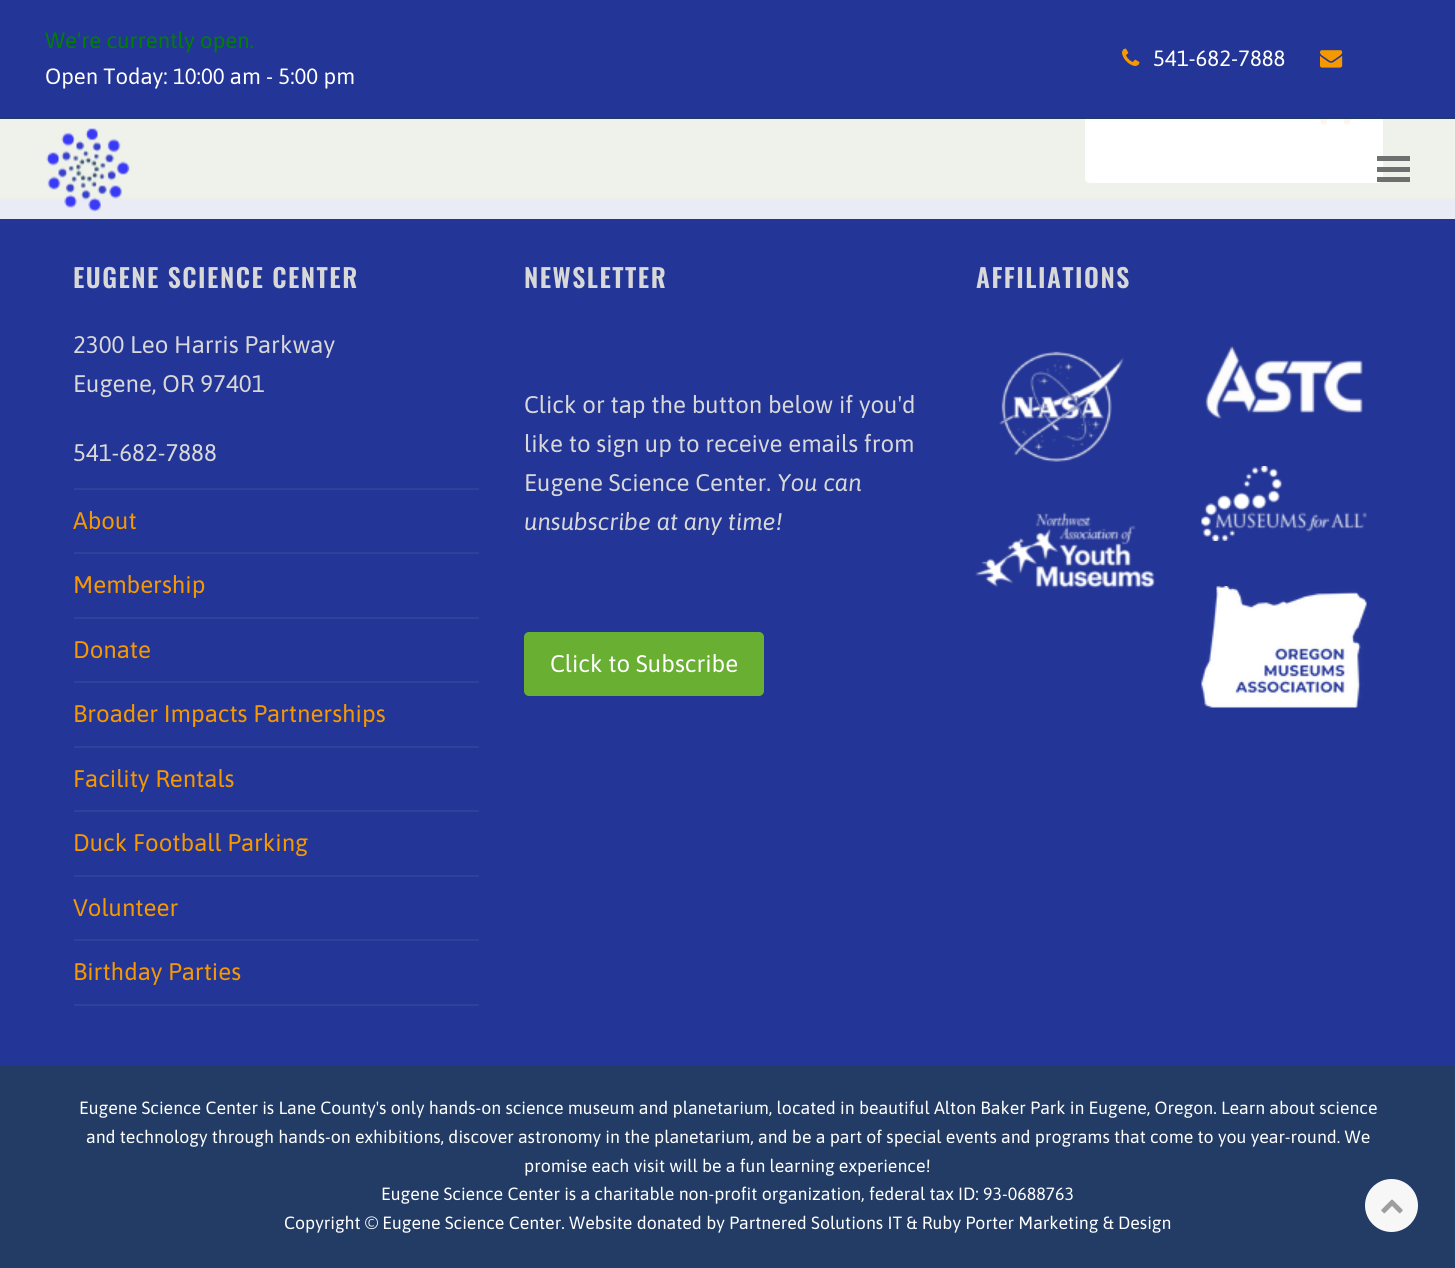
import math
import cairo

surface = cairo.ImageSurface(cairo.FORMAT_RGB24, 1455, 1268)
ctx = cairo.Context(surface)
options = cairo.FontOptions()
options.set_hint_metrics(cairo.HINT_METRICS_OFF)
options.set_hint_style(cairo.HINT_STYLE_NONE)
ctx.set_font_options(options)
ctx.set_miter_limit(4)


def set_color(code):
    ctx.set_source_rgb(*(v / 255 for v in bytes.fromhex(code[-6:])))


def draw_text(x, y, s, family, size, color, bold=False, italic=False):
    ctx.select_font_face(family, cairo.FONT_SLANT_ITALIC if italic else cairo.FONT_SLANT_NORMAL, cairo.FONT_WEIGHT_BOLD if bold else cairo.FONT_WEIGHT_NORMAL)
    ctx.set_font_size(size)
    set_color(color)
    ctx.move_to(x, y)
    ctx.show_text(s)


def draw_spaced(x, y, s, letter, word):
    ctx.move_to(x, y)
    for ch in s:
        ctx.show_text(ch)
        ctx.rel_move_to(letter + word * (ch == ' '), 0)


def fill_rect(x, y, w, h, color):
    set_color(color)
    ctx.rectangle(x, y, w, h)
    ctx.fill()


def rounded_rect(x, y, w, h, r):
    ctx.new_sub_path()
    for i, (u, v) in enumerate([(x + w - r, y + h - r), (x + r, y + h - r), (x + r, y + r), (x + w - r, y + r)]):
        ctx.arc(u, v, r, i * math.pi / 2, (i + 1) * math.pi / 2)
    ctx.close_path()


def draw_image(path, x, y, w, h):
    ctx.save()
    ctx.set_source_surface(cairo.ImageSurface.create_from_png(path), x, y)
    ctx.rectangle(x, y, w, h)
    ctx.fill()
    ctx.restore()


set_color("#4f7f25")
ctx.paint()
set_color("#ffffff")
rounded_rect(1085, 41, 298, 142, 5)
ctx.fill()
fill_rect(0, 0, 1455, 117, "#233596")
fill_rect(0, 117, 1455, 2, "#223c66")
draw_text(45, 48, "We're currently open.", "Asap", 22.1, "#008000")
draw_text(45, 84, "Open Today: 10:00 am - 5:00 pm", "Asap", 22.1, "#ffffff")
draw_image("assets/img1.png", 1122, 48, 18, 18)
draw_text(1153, 66, "541-682-7888", "Asap", 22.1, "#ffffff")
draw_image("assets/img2.png", 1320, 50, 23, 18)
fill_rect(0, 198, 1455, 2, "#4c4c4c")
draw_image("assets/img3.png", 1318, 119, 35, 6)
fill_rect(0, 200, 1455, 865, "#233596")
ctx.set_source_rgba(1, 1, 1, 0.9)
ctx.rectangle(0, 119, 1455, 100)
ctx.fill()
draw_image("assets/img4.png", 46, 128, 84, 84)
ctx.set_source_rgba(0.38, 0.38, 0.38, 0.9)
ctx.rectangle(1377, 167, 33, 5)
ctx.fill()
ctx.rectangle(1377, 156, 33, 5)
ctx.fill()
ctx.rectangle(1377, 177, 33, 5)
ctx.fill()
ctx.select_font_face("Oswald SemiBold")
ctx.set_font_size(25.8)
set_color("#d8d8d8")
draw_spaced(73, 288, "EUGENE SCIENCE CENTER", 1.5, 0)
draw_text(73, 353, "2300 Leo Harris Parkway", "Asap", 24, "#d8d8d8")
draw_text(73, 392, "Eugene, OR 97401", "Asap", 24, "#d8d8d8")
draw_text(73, 461, "541-682-7888", "Asap", 24, "#d8d8d8")
fill_rect(74, 488, 405, 2, "#30419c")
fill_rect(74, 552, 405, 2, "#30419c")
draw_text(73, 529, "About", "Asap", 24, "#f69900")
fill_rect(74, 617, 405, 2, "#30419c")
draw_text(73, 593, "Membership", "Asap", 24, "#f69900")
fill_rect(74, 681, 405, 2, "#30419c")
draw_text(73, 658, "Donate", "Asap", 24, "#f69900")
fill_rect(74, 746, 405, 2, "#30419c")
draw_text(73, 722, "Broader Impacts Partnerships", "Asap", 24, "#f69900")
fill_rect(74, 810, 405, 2, "#30419c")
draw_text(73, 787, "Facility Rentals", "Asap", 24, "#f69900")
fill_rect(74, 875, 405, 2, "#30419c")
draw_text(73, 851, "Duck Football Parking", "Asap", 24, "#f69900")
fill_rect(74, 939, 405, 2, "#30419c")
draw_text(73, 916, "Volunteer", "Asap", 24, "#f69900")
fill_rect(74, 1004, 405, 2, "#30419c")
draw_text(73, 980, "Birthday Parties", "Asap", 24, "#f69900")
ctx.select_font_face("Oswald SemiBold")
ctx.set_font_size(25.8)
set_color("#d8d8d8")
draw_spaced(524, 288, "NEWSLETTER", 1.5, 0)
draw_text(524, 413, "Click or tap the button below if you'd", "Asap", 24, "#d8d8d8")
draw_text(524, 452, "like to sign up to receive emails from", "Asap", 24, "#d8d8d8")
draw_text(524, 491, "Eugene Science Center.", "Asap", 24, "#d8d8d8")
draw_text(777, 491, "You can", "Asap", 24, "#d8d8d8", italic=True)
draw_text(524, 530, "unsubscribe at any time!", "Asap", 24, "#d8d8d8", italic=True)
set_color("#68af32")
rounded_rect(524, 632, 240, 64, 5)
ctx.fill()
draw_text(550, 672, "Click to Subscribe", "Asap", 24, "#ffffff")
ctx.select_font_face("Oswald SemiBold")
ctx.set_font_size(25.8)
set_color("#d8d8d8")
draw_spaced(976, 288, "AFFILIATIONS", 1.5, 0)
draw_image("assets/img5.png", 999, 351, 125, 111)
draw_image("assets/img6.png", 975, 512, 180, 76)
draw_image("assets/img7.png", 1205, 346, 158, 73)
draw_image("assets/img8.png", 1201, 466, 166, 75)
draw_image("assets/img9.png", 1201, 586, 166, 122)
fill_rect(0, 1065, 1455, 203, "#223c66")
draw_text(79, 1114, "Eugene Science Center is Lane County's only hands-on science museum and planetarium, located in beautiful Alton Baker Park in Eugene, Oregon. Learn about science", "Asap", 17.72, "#ffffff")
draw_text(86, 1143, "and technology through hands-on exhibitions, discover astronomy in the planetarium, and be a part of special events and programs that come to you year-round. We", "Asap", 17.72, "#ffffff")
draw_text(524, 1172, "promise each visit will be a fun learning experience!", "Asap", 17.72, "#ffffff")
draw_text(381, 1200, "Eugene Science Center is a charitable non-profit organization, federal tax ID: 93-0688763", "Asap", 17.72, "#ffffff")
draw_text(284, 1229, "Copyright © Eugene Science Center.", "Asap", 17.72, "#ffffff")
draw_text(569, 1229, "Website donated by Partnered Solutions IT & Ruby Porter Marketing & Design", "Asap", 17.72, "#ffffff")
set_color("#f7f7f7")
ctx.new_path()
ctx.arc(1391.5, 1205.5, 26.5, 0, 2 * math.pi)
ctx.fill()
draw_image("assets/img10.png", 1381, 1199, 22, 15)
surface.write_to_png("output.png")
